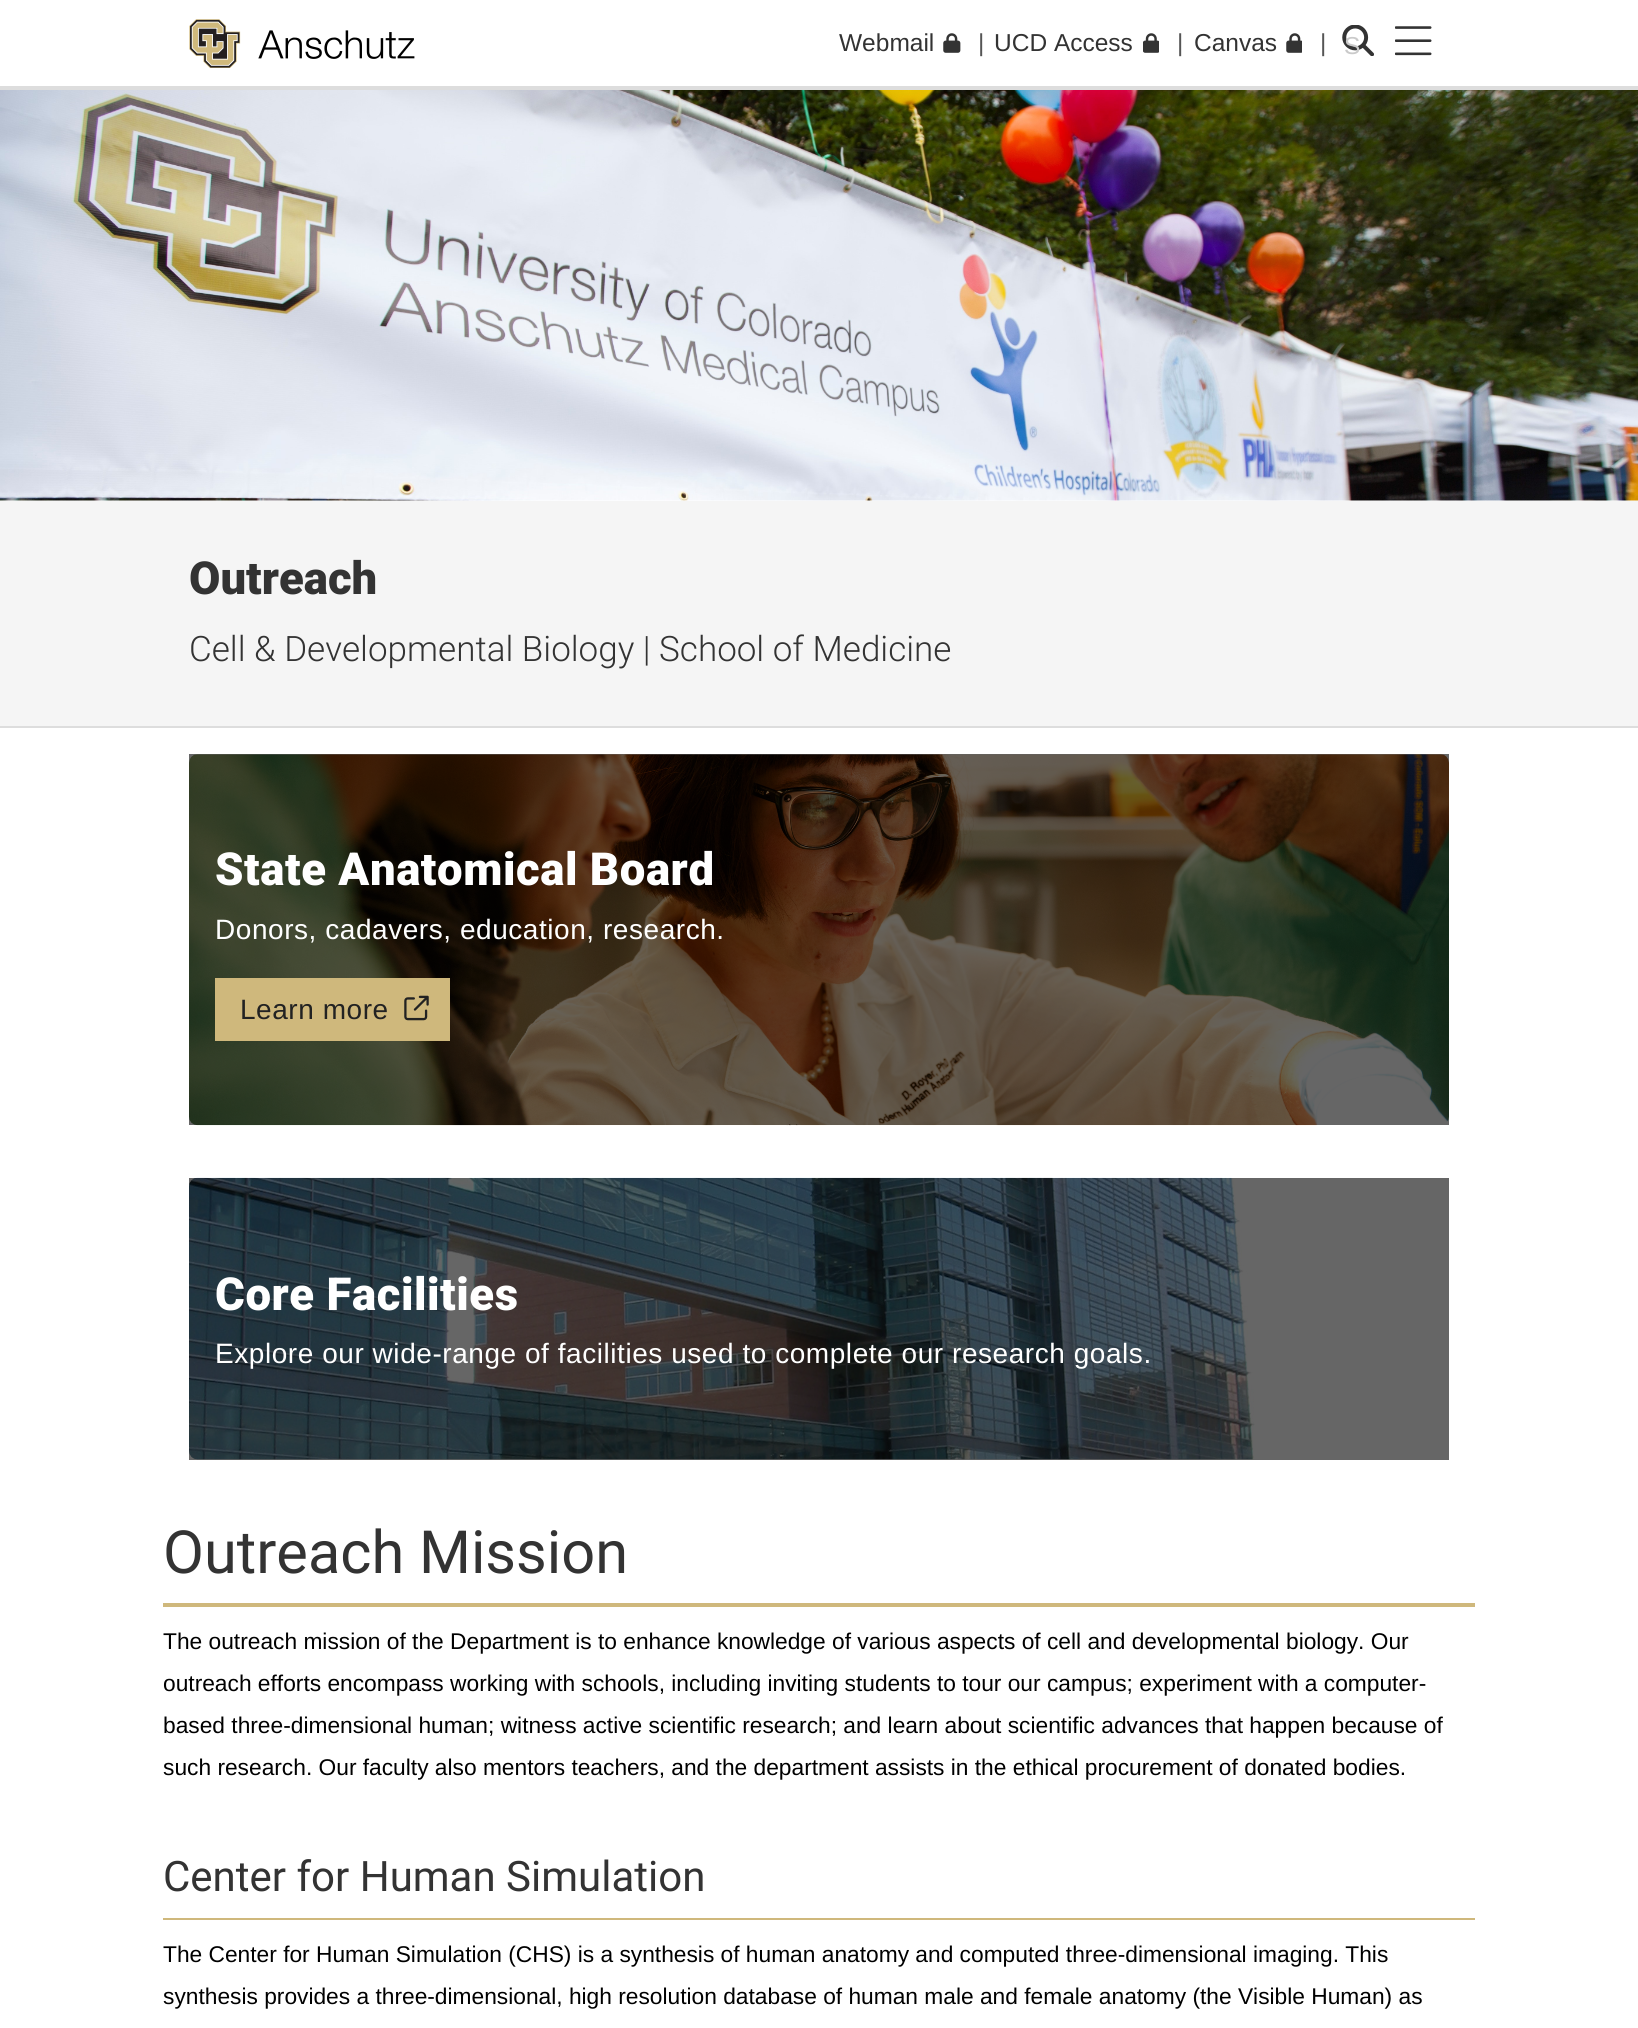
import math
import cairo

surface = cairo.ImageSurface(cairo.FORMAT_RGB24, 1638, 2028)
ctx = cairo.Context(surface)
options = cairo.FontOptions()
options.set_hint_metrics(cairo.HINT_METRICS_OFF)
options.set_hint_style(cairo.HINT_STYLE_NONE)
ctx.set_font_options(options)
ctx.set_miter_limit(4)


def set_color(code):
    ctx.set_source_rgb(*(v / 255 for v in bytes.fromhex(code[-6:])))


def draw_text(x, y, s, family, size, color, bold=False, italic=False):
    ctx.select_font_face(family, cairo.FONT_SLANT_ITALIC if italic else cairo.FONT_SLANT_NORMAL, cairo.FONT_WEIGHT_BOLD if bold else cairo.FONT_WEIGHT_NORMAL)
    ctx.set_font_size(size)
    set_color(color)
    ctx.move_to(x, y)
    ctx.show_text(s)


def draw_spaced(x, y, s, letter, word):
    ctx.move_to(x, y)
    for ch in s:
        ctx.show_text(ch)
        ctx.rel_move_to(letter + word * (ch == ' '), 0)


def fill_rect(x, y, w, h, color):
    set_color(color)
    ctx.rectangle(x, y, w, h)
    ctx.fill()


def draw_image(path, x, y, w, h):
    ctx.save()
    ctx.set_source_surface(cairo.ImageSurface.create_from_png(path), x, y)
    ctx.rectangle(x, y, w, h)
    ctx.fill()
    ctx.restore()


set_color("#ffffff")
ctx.paint()
fill_rect(189, 1178, 1260, 282, "#666666")
fill_rect(189, 754, 1260, 371, "#666666")
draw_image("assets/img1.png", 189, 19, 226, 49)
draw_text(839, 51, "Webmail", "Liberation Sans", 24.5, "#333333")
draw_image("assets/img2.png", 943, 33, 18, 20)
draw_text(978, 51, "|", "Liberation Sans", 24.5, "#555555")
draw_text(994, 51, "UCD Access", "Liberation Sans", 24.5, "#333333")
draw_image("assets/img3.png", 1143, 33, 16, 20)
draw_text(1177, 51, "|", "Liberation Sans", 24.5, "#555555")
draw_text(1194, 51, "Canvas", "Liberation Sans", 24.5, "#333333")
draw_image("assets/img4.png", 1286, 33, 16, 20)
draw_text(1320, 51, "|", "Liberation Sans", 24.5, "#555555")
draw_image("assets/img5.png", 1342, 25, 32, 31)
draw_text(1344, 54, "S", "Liberation Sans", 24.5, "#cacaca")
draw_image("assets/img6.png", 1395, 26, 37, 30)
draw_image("assets/img7.png", 0, 90, 1638, 411)
fill_rect(0, 501, 1638, 225, "#f5f5f5")
fill_rect(0, 726, 1638, 2, "#dddddd")
draw_text(189, 594, "Outreach", "Roboto Black", 45.5, "#333333")
draw_text(189, 661, "Cell & Developmental Biology | School of Medicine", "Roboto Light", 35, "#333333")
fill_rect(0, 86, 1638, 4, "#dddddd")
draw_image("assets/img8.png", 189, 754, 1260, 372)
ctx.select_font_face("Roboto Black")
ctx.set_font_size(45.5)
set_color("#ffffff")
draw_spaced(215, 885, "State Anatomical Board", 0.55, 0)
ctx.select_font_face("Liberation Sans")
ctx.set_font_size(28)
draw_spaced(215, 939, "Donors, cadavers, education, research.", 0.55, 0)
fill_rect(215, 978, 235, 63, "#cfb87c")
set_color("#222222")
draw_spaced(240, 1019, "Learn more", 0.55, 0)
draw_image("assets/img9.png", 404, 995, 25, 26)
draw_image("assets/img10.png", 189, 1177, 1066, 283)
ctx.select_font_face("Roboto Black")
ctx.set_font_size(45.5)
set_color("#ffffff")
draw_spaced(215, 1310, "Core Facilities", 0.55, 0)
ctx.select_font_face("Liberation Sans")
ctx.set_font_size(28)
draw_spaced(215, 1363, "Explore our wide-range of facilities used to complete our research goals.", 0.55, 0)
draw_text(163, 1573, "Outreach Mission", "Roboto", 59.5, "#333333")
fill_rect(163, 1603, 1312, 4, "#cfb87c")
draw_text(163, 1649, "The outreach mission of the Department is to enhance knowledge of various aspects of cell and developmental biology. Our", "Liberation Sans", 22.75, "#000000")
draw_text(163, 1691, "outreach efforts encompass working with schools, including inviting students to tour our campus; experiment with a computer-", "Liberation Sans", 22.75, "#000000")
draw_text(163, 1733, "based three-dimensional human; witness active scientific research; and learn about scientific advances that happen because of", "Liberation Sans", 22.75, "#000000")
draw_text(163, 1775, "such research. Our faculty also mentors teachers, and the department assists in the ethical procurement of donated bodies.", "Liberation Sans", 22.75, "#000000")
draw_text(163, 1891, "Center for Human Simulation", "Roboto", 42, "#333333")
fill_rect(163, 1918, 1312, 2, "#cfb87c")
draw_text(163, 1962, "The Center for Human Simulation (CHS) is a synthesis of human anatomy and computed three-dimensional imaging. This", "Liberation Sans", 22.75, "#000000")
draw_text(163, 2004, "synthesis provides a three-dimensional, high resolution database of human male and female anatomy (the Visible Human) as", "Liberation Sans", 22.75, "#000000")
surface.write_to_png("output.png")
